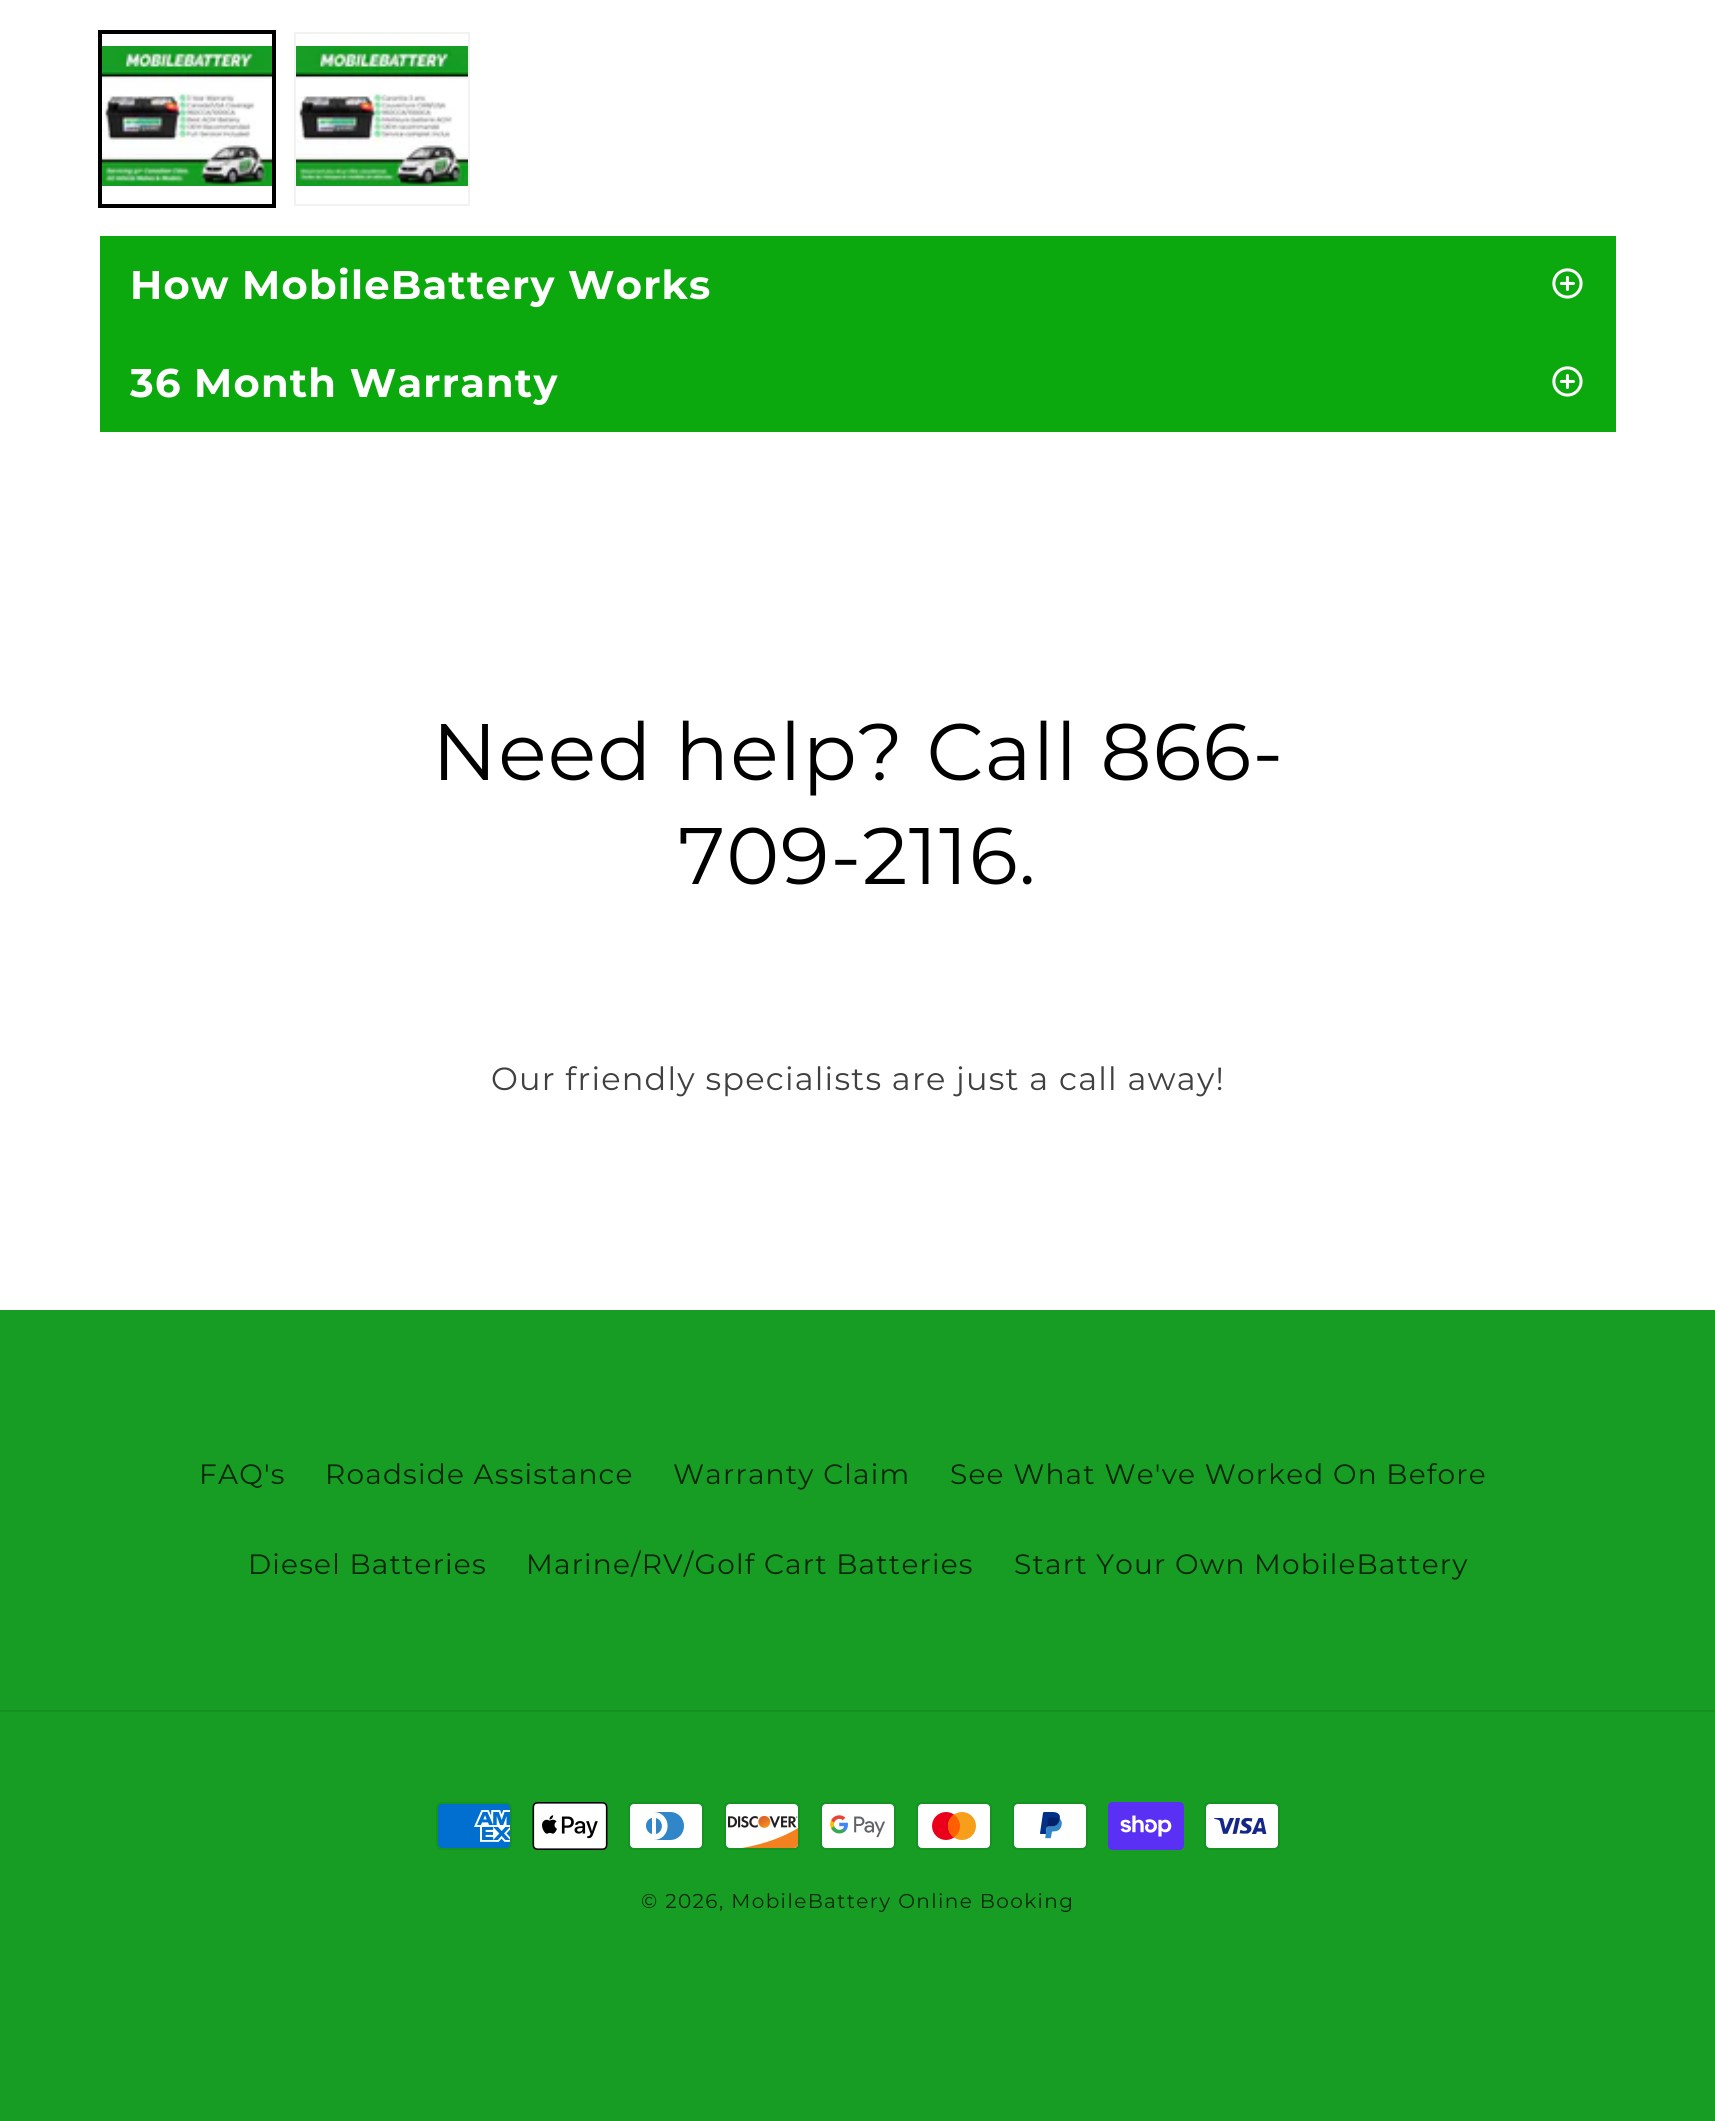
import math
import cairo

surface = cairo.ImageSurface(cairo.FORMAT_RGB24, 1715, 2121)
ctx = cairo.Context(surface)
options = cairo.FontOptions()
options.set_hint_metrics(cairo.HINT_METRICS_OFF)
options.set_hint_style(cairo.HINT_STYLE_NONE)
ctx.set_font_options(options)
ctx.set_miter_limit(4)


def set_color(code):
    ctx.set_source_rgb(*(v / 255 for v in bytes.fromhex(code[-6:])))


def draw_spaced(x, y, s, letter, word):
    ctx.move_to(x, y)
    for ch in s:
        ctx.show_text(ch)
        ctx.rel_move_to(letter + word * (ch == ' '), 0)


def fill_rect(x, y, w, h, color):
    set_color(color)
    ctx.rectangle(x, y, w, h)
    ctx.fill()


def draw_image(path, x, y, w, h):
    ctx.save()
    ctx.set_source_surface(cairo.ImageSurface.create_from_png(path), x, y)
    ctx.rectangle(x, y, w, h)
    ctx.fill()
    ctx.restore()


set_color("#ffffff")
ctx.paint()
ctx.rectangle(99, 31, 176, 176)
set_color("#000000")
ctx.stroke()
ctx.rectangle(101, 33, 172, 172)
ctx.stroke()
draw_image("assets/img1.png", 102, 46, 170, 140)
ctx.rectangle(295, 33, 174, 172)
set_color("#f2f2f2")
ctx.stroke()
draw_image("assets/img2.png", 296, 46, 172, 140)
fill_rect(100, 236, 1516, 196, "#0ba80e")
ctx.select_font_face("Montserrat", cairo.FONT_SLANT_NORMAL, cairo.FONT_WEIGHT_BOLD)
ctx.set_font_size(40)
set_color("#ffffff")
draw_spaced(130, 299, "How MobileBattery Works", 1.2, 0)
draw_image("assets/img3.png", 1552, 268, 31, 31)
draw_spaced(130, 397, "36 Month Warranty", 1.2, 0)
draw_image("assets/img3.png", 1552, 366, 31, 31)
ctx.select_font_face("Montserrat")
ctx.set_font_size(80)
set_color("#000000")
draw_spaced(432, 780, "Need help? Call 866-", 1.2, 0)
draw_spaced(678, 884, "709-2116.", 1.2, 0)
ctx.set_font_size(32)
set_color("#404040")
draw_spaced(491, 1090, "Our friendly specialists are just a call away!", 1.2, 0)
fill_rect(0, 1310, 1715, 811, "#179d24")
ctx.set_font_size(28)
set_color("#062709")
draw_spaced(199, 1484, "FAQ's", 1.2, 0)
draw_spaced(325, 1484, "Roadside Assistance", 1.2, 0)
draw_spaced(673, 1484, "Warranty Claim", 1.2, 0)
draw_spaced(950, 1484, "See What We've Worked On Before", 1.2, 0)
draw_spaced(248, 1574, "Diesel Batteries", 1.2, 0)
draw_spaced(526, 1574, "Marine/RV/Golf Cart Batteries", 1.2, 0)
draw_spaced(1014, 1574, "Start Your Own MobileBattery", 1.2, 0)
fill_rect(0, 1710, 1715, 2, "#159021")
draw_image("assets/img4.png", 436, 1802, 76, 48)
draw_image("assets/img5.png", 532, 1802, 76, 48)
draw_image("assets/img6.png", 628, 1802, 76, 48)
draw_image("assets/img7.png", 724, 1802, 76, 48)
draw_image("assets/img8.png", 820, 1802, 76, 48)
draw_image("assets/img9.png", 916, 1802, 76, 48)
draw_image("assets/img10.png", 1012, 1802, 76, 48)
draw_image("assets/img11.png", 1108, 1802, 76, 48)
draw_image("assets/img12.png", 1204, 1802, 76, 48)
ctx.set_font_size(20)
set_color("#062709")
draw_spaced(641, 1908, "© 2026, MobileBattery Online Booking", 1.4, 0)
surface.write_to_png("output.png")
